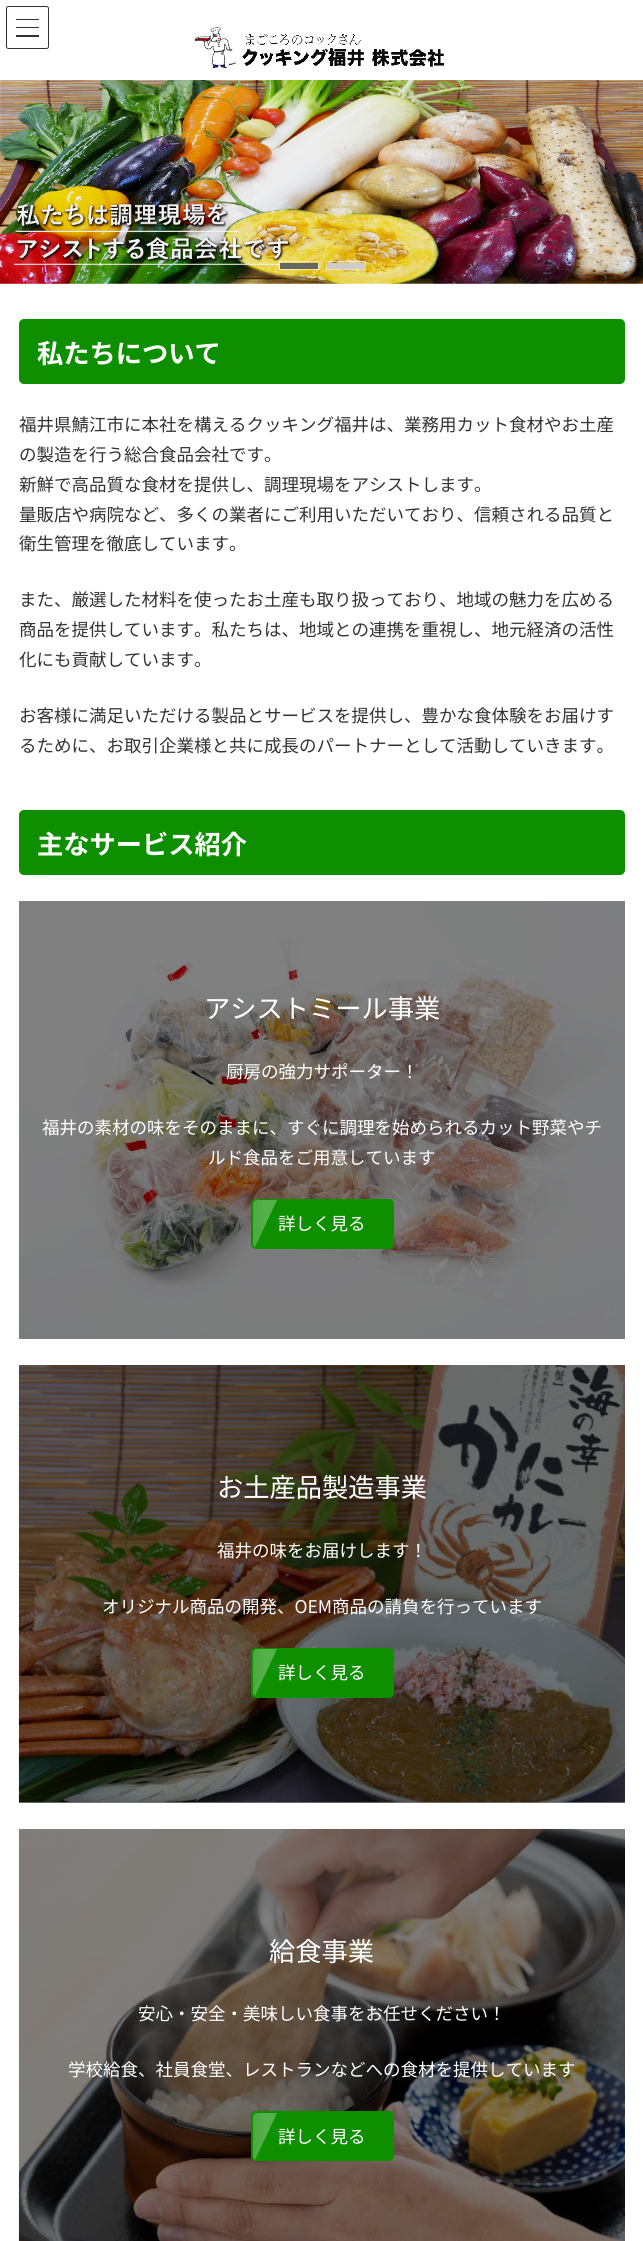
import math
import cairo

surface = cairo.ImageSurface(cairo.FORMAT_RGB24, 643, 2241)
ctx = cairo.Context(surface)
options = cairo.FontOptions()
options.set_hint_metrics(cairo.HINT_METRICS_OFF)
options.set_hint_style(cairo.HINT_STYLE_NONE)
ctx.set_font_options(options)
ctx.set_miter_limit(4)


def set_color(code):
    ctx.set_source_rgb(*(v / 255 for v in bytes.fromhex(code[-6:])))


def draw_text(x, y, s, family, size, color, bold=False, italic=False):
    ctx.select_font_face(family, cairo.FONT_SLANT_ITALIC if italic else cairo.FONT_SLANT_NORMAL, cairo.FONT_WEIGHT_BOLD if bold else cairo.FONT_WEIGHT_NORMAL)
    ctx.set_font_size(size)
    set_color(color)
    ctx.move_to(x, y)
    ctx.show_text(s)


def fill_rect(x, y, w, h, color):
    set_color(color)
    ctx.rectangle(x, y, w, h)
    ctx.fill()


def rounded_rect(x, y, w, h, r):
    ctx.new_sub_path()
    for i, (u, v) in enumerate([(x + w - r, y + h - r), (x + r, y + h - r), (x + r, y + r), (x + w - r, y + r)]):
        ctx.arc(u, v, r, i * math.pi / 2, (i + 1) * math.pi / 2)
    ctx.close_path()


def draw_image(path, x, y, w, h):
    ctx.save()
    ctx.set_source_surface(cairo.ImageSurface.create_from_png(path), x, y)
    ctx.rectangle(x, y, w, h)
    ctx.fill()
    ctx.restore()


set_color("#ffffff")
ctx.paint()
fill_rect(19, 1802, 606, 1, "#808080")
fill_rect(19, 901, 606, 438, "#808080")
fill_rect(16, 19, 23, 1, "#333333")
fill_rect(16, 27, 23, 1, "#333333")
fill_rect(16, 35, 23, 2, "#333333")
rounded_rect(6.5, 6.5, 42, 42, 2)
ctx.set_line_width(1)
ctx.stroke()
draw_image("assets/img1.png", 194, 27, 250, 42)
draw_image("assets/img2.png", 0, 80, 643, 204)
fill_rect(280, 263, 38, 6, "#666666")
ctx.rectangle(279.5, 261.5, 39, 8)
ctx.set_source_rgba(1, 1, 1, 0.5)
ctx.stroke()
fill_rect(328, 263, 37, 6, "#cccccc")
ctx.rectangle(326.5, 261.5, 39, 8)
ctx.set_source_rgba(1, 1, 1, 0.5)
ctx.stroke()
set_color("#0e8f00")
rounded_rect(19, 319, 606, 65, 5)
ctx.fill()
draw_text(37, 363, "私たちについて", "Noto Sans JP", 26.25, "#ffffff", bold=True)
draw_text(19, 431, "福井県鯖江市に本社を構えるクッキング福井は、業務用カット食材やお土産", "Noto Sans JP", 17.5, "#333333")
draw_text(19, 461, "の製造を行う総合食品会社です。", "Noto Sans JP", 17.5, "#333333")
draw_text(19, 491, "新鮮で高品質な食材を提供し、調理現場をアシストします。", "Noto Sans JP", 17.5, "#333333")
draw_text(19, 521, "量販店や病院など、多くの業者にご利用いただいており、信頼される品質と", "Noto Sans JP", 17.5, "#333333")
draw_text(19, 550, "衛生管理を徹底しています。", "Noto Sans JP", 17.5, "#333333")
draw_text(19, 606, "また、厳選した材料を使ったお土産も取り扱っており、地域の魅力を広める", "Noto Sans JP", 17.5, "#333333")
draw_text(19, 636, "商品を提供しています。私たちは、地域との連携を重視し、地元経済の活性", "Noto Sans JP", 17.5, "#333333")
draw_text(19, 666, "化にも貢献しています。", "Noto Sans JP", 17.5, "#333333")
draw_text(19, 722, "お客様に満足いただける製品とサービスを提供し、豊かな食体験をお届けす", "Noto Sans JP", 17.5, "#333333")
draw_text(19, 752, "るために、お取引企業様と共に成長のパートナーとして活動していきます。", "Noto Sans JP", 17.5, "#333333")
set_color("#0e8f00")
rounded_rect(19, 810, 606, 65, 5)
ctx.fill()
draw_text(37, 854, "主なサービス紹介", "Noto Sans JP", 26.25, "#ffffff", bold=True)
draw_image("assets/img3.png", 19, 902, 606, 437)
draw_text(204, 1018, "アシストミール事業", "Noto Sans JP", 26.25, "#ffffff")
draw_text(226, 1078, "厨房の強力サポーター！", "Noto Sans JP", 17.5, "#ffffff")
draw_text(42, 1134, "福井の素材の味をそのままに、すぐに調理を始められるカット野菜やチ", "Noto Sans JP", 17.5, "#ffffff")
draw_text(208, 1164, "ルド食品をご用意しています", "Noto Sans JP", 17.5, "#ffffff")
set_color("#0e8f00")
rounded_rect(251.5, 1199.5, 142, 49, 4.5)
ctx.fill_preserve()
ctx.stroke()
gradient = cairo.LinearGradient(196, 1223, 266, 1223)
gradient.add_color_stop_rgba(0, 0.055, 0.561, 0, 1)
gradient.add_color_stop_rgba(1, 0.337, 0.694, 0.302, 1)
ctx.set_source(gradient)
ctx.new_path()
ctx.move_to(257, 1200)
ctx.curve_to(255, 1200, 253, 1202, 253, 1204)
ctx.line_to(253, 1244)
ctx.curve_to(253, 1245, 254, 1246, 254, 1247)
ctx.line_to(255, 1247)
ctx.line_to(277, 1200)
ctx.close_path()
ctx.fill()
draw_text(278, 1230, "詳しく見る", "Noto Sans JP", 17.5, "#ffffff")
draw_image("assets/img4.png", 18, 1365, 607, 438)
draw_text(217, 1497, "お土産品製造事業", "Noto Sans JP", 26.25, "#ffffff")
draw_text(217, 1557, "福井の味をお届けします！", "Noto Sans JP", 17.5, "#ffffff")
draw_text(102, 1613, "オリジナル商品の開発、OEM商品の請負を行っています", "Noto Sans JP", 17.5, "#ffffff")
set_color("#0e8f00")
rounded_rect(251.5, 1648.5, 142, 49, 4.5)
ctx.fill_preserve()
ctx.stroke()
gradient = cairo.LinearGradient(196, 1672, 266, 1672)
gradient.add_color_stop_rgba(0, 0.055, 0.561, 0, 1)
gradient.add_color_stop_rgba(1, 0.337, 0.694, 0.302, 1)
ctx.set_source(gradient)
ctx.new_path()
ctx.move_to(257, 1649)
ctx.curve_to(255, 1649, 253, 1651, 253, 1653)
ctx.line_to(253, 1692)
ctx.curve_to(253, 1694, 254, 1695, 255, 1696)
ctx.line_to(277, 1649)
ctx.close_path()
ctx.fill()
draw_text(278, 1679, "詳しく見る", "Noto Sans JP", 17.5, "#ffffff")
draw_image("assets/img5.png", 18, 1828, 607, 413)
draw_text(269, 1961, "給食事業", "Noto Sans JP", 26.25, "#ffffff")
draw_text(138, 2020, "安心・安全・美味しい食事をお任せください！", "Noto Sans JP", 17.5, "#ffffff")
draw_text(68, 2076, "学校給食、社員食堂、レストランなどへの食材を提供しています", "Noto Sans JP", 17.5, "#ffffff")
set_color("#0e8f00")
rounded_rect(251.5, 2111.5, 142, 49, 4.5)
ctx.fill_preserve()
ctx.stroke()
gradient = cairo.LinearGradient(196, 2136, 266, 2136)
gradient.add_color_stop_rgba(0, 0.055, 0.561, 0, 1)
gradient.add_color_stop_rgba(1, 0.337, 0.694, 0.302, 1)
ctx.set_source(gradient)
ctx.new_path()
ctx.move_to(257, 2113)
ctx.line_to(277, 2113)
ctx.line_to(255, 2160)
ctx.curve_to(254, 2159, 253, 2158, 253, 2156)
ctx.line_to(253, 2117)
ctx.curve_to(253, 2115, 255, 2113, 257, 2113)
ctx.close_path()
ctx.fill()
draw_text(278, 2143, "詳しく見る", "Noto Sans JP", 17.5, "#ffffff")
surface.write_to_png("output.png")
